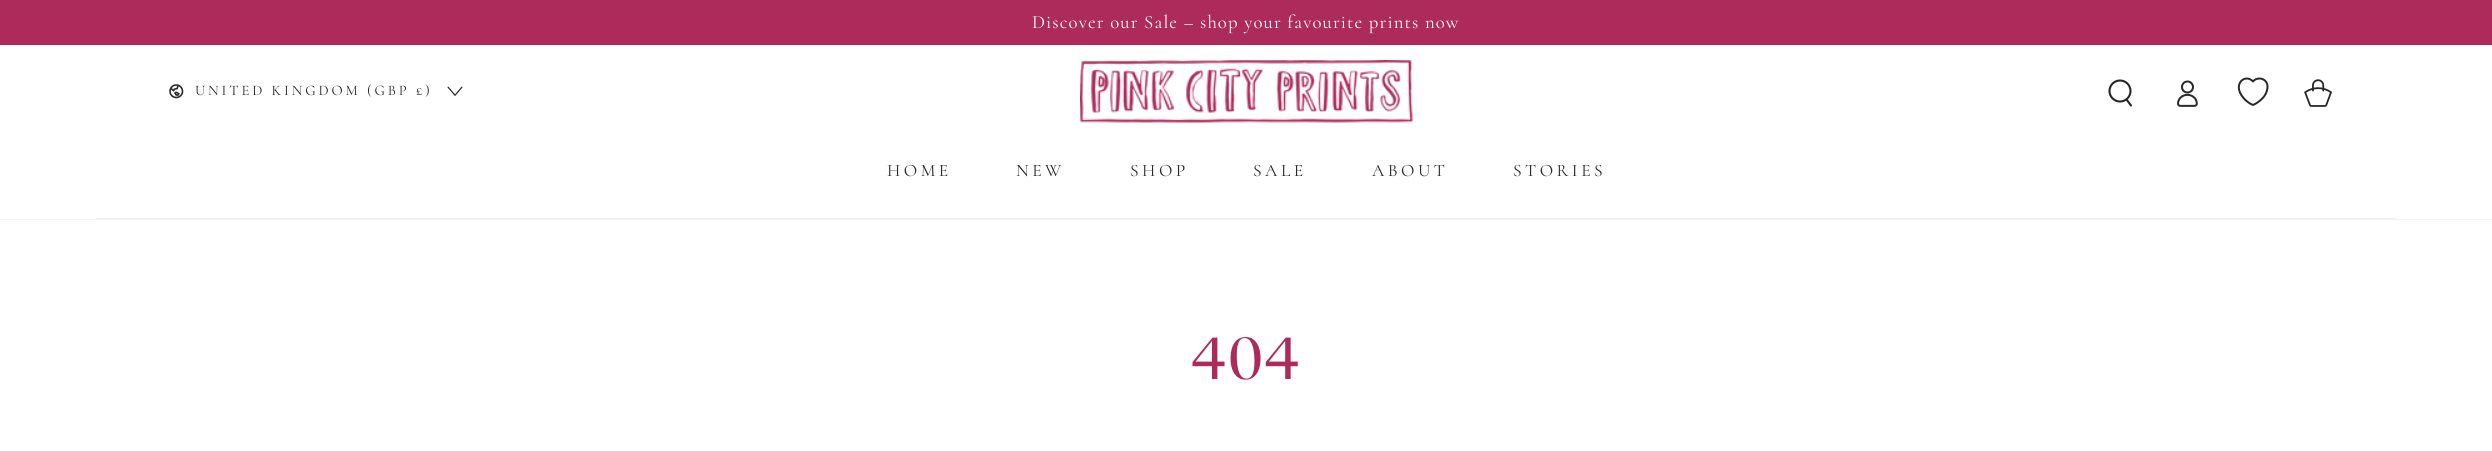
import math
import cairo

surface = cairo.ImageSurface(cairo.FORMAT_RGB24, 2492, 451)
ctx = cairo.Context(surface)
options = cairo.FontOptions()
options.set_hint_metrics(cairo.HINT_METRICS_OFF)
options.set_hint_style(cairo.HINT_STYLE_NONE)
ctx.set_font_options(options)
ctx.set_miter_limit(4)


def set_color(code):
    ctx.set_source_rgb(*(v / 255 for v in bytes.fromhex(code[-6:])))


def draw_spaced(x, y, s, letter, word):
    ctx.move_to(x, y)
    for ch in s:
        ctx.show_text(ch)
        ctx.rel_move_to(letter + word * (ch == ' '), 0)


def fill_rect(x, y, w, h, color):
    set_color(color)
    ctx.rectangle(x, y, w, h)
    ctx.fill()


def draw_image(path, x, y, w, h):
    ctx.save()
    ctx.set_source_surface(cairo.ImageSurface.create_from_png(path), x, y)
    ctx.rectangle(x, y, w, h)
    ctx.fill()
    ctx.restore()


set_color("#ffffff")
ctx.paint()
fill_rect(0, 0, 2492, 45, "#ad2b5b")
ctx.select_font_face("Cormorant Light")
ctx.set_font_size(18.75)
set_color("#ffffff")
draw_spaced(1032, 28, "Discover our Sale – shop your favourite prints now", 1.12, 0)
set_color("#f2f2f4")
ctx.new_path()
ctx.move_to(0, 219)
ctx.line_to(0, 220)
ctx.line_to(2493, 220)
ctx.line_to(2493, 46)
ctx.line_to(2492, 46)
ctx.line_to(2492, 219)
ctx.close_path()
ctx.fill()
fill_rect(96, 218, 2300, 1, "#f2f2f4")
draw_image("assets/img1.png", 169, 84, 15, 15)
ctx.set_font_size(14.6)
set_color("#282828")
draw_spaced(195, 95, "UNITED KINGDOM (GBP £)", 2.9, 0)
draw_image("assets/img2.png", 447, 86, 16, 10)
draw_image("assets/img3.png", 1080, 60, 333, 63)
ctx.arc(2120, 91, 10.5, 0, 2 * math.pi)
ctx.set_line_width(2.1)
ctx.stroke()
ctx.new_path()
ctx.move_to(2126.5, 99.5)
ctx.line_to(2131, 105.5)
ctx.set_line_cap(cairo.LINE_CAP_ROUND)
ctx.stroke()
draw_image("assets/img4.png", 2177, 80, 21, 27)
ctx.new_path()
ctx.move_to(2259.5, 78.5)
ctx.curve_to(2257, 78.5, 2254.5, 79.5, 2253, 81.5)
ctx.curve_to(2245.5, 73, 2231.5, 84, 2243.5, 98)
ctx.curve_to(2246, 101, 2249.5, 103.5, 2253, 105)
ctx.curve_to(2253, 105, 2267.5, 99, 2267.5, 86.5)
ctx.curve_to(2267.5, 82, 2264, 78.5, 2259.5, 78.5)
ctx.close_path()
ctx.set_line_width(2)
ctx.set_line_join(cairo.LINE_JOIN_ROUND)
ctx.stroke()
draw_image("assets/img5.png", 2304, 79, 28, 28)
ctx.set_font_size(17.5)
draw_spaced(887, 176, "HOME", 3.5, 0)
draw_spaced(1016, 176, "NEW", 3.5, 0)
draw_spaced(1130, 176, "SHOP", 3.5, 0)
draw_spaced(1253, 176, "SALE", 3.5, 0)
draw_spaced(1372, 176, "ABOUT", 3.5, 0)
draw_spaced(1513, 176, "STORIES", 3.5, 0)
ctx.select_font_face("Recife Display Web")
ctx.set_font_size(60)
set_color("#ad2b5b")
draw_spaced(1191, 379, "404", 0.5, 0)
surface.write_to_png("output.png")
